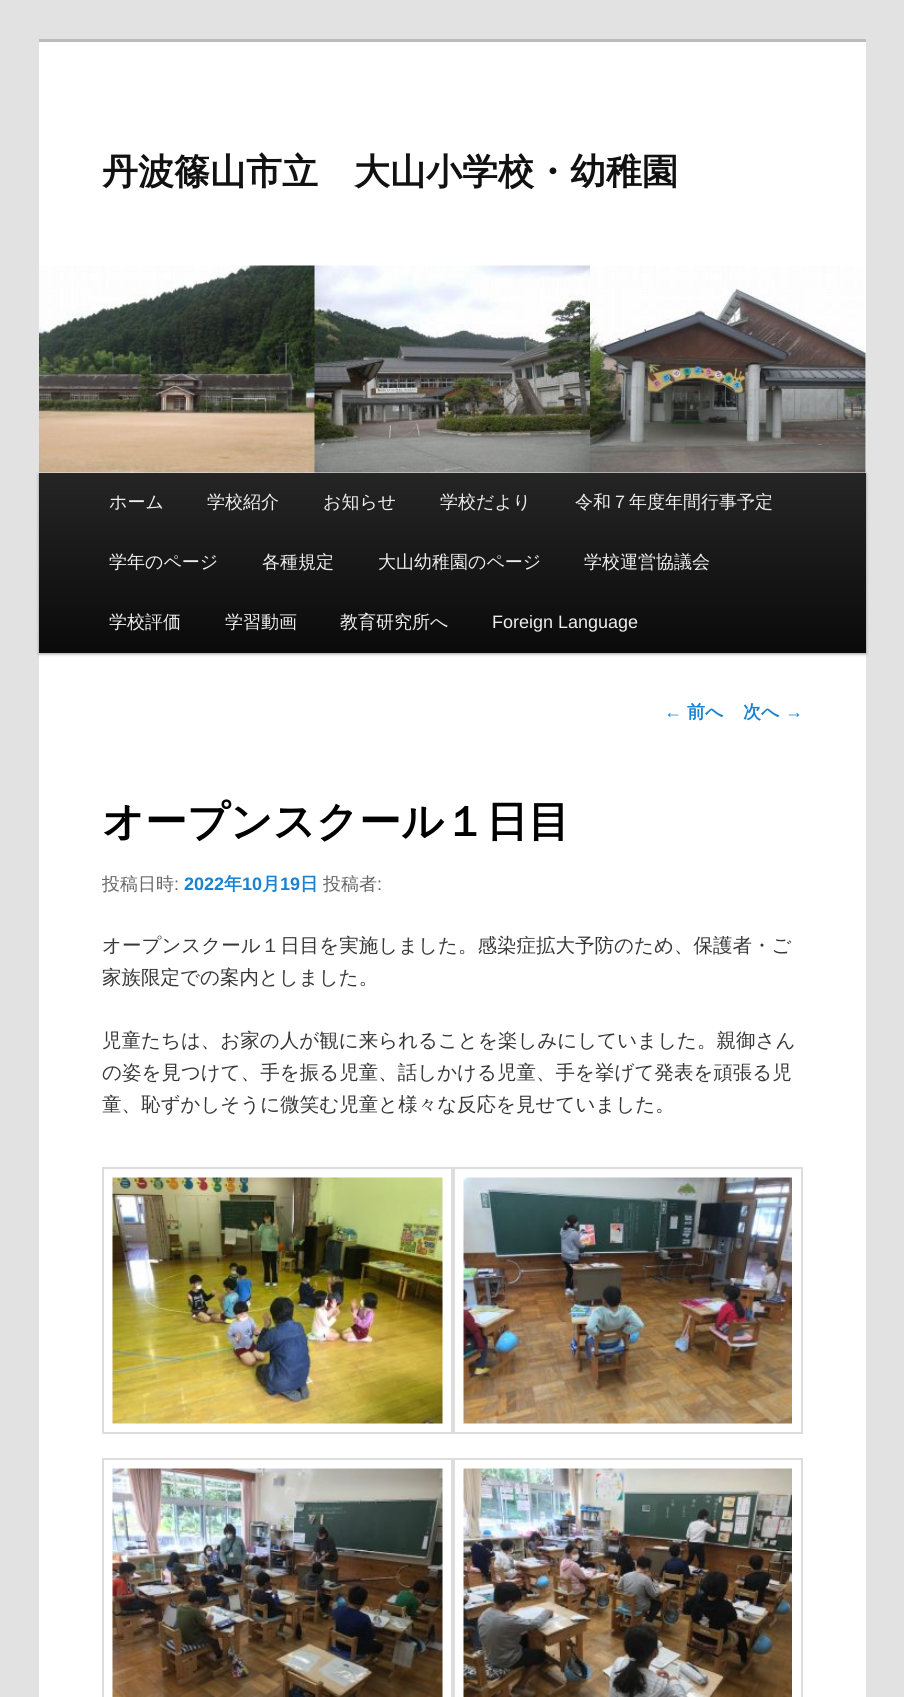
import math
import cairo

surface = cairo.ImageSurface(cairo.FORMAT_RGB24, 904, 1697)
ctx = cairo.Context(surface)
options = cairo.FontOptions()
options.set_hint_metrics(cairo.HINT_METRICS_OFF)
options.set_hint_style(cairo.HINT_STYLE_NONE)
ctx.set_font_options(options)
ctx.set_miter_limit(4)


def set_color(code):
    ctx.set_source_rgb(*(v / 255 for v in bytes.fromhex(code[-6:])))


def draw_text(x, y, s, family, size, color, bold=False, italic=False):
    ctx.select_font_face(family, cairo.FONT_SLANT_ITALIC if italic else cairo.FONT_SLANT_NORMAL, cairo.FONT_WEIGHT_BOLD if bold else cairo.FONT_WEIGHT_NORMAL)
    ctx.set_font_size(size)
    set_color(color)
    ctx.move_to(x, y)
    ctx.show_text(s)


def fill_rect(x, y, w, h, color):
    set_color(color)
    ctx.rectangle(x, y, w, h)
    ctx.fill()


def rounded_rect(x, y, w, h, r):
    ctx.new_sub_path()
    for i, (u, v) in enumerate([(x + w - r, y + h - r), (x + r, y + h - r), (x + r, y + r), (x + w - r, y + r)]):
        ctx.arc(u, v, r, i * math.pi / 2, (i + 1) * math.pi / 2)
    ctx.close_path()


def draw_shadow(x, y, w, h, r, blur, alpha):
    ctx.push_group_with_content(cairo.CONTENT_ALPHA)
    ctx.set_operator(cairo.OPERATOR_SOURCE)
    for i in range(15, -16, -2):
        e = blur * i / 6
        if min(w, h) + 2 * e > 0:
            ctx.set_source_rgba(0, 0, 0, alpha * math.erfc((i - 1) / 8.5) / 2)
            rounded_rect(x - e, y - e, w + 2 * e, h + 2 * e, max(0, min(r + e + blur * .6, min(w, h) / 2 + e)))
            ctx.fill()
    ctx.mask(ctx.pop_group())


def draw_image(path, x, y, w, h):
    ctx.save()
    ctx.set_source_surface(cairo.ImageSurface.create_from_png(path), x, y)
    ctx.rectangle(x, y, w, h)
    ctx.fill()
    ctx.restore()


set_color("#e2e2e2")
ctx.paint()
fill_rect(39, 42, 827, 1655, "#ffffff")
fill_rect(39, 39, 827, 3, "#bbbbbb")
draw_text(102, 184, "丹波篠山市立　大山小学校・幼稚園", "WenQuanYi Zen Hei", 36, "#111111", bold=True)
set_color("#000000")
draw_shadow(39, 474, 827, 180, 0, 1.5, 0.4)
draw_image("assets/img1.png", 39, 265, 827, 208)
gradient = cairo.LinearGradient(452, 472, 452, 653)
gradient.add_color_stop_rgba(0, 0.145, 0.145, 0.145, 1)
gradient.add_color_stop_rgba(1, 0.039, 0.039, 0.039, 1)
ctx.set_source(gradient)
ctx.rectangle(39, 473, 827, 180)
ctx.fill()
draw_text(109, 508, "ホーム", "WenQuanYi Zen Hei Medium", 18, "#eeeeee")
draw_text(207, 508, "学校紹介", "WenQuanYi Zen Hei Medium", 18, "#eeeeee")
draw_text(323, 508, "お知らせ", "WenQuanYi Zen Hei Medium", 18, "#eeeeee")
draw_text(440, 508, "学校だより", "WenQuanYi Zen Hei Medium", 18, "#eeeeee")
draw_text(575, 508, "令和７年度年間行事予定", "WenQuanYi Zen Hei Medium", 18, "#eeeeee")
draw_text(109, 568, "学年のページ", "WenQuanYi Zen Hei Medium", 18, "#eeeeee")
draw_text(262, 568, "各種規定", "WenQuanYi Zen Hei Medium", 18, "#eeeeee")
draw_text(378, 568, "大山幼稚園のページ", "WenQuanYi Zen Hei Medium", 18, "#eeeeee")
draw_text(584, 568, "学校運営協議会", "WenQuanYi Zen Hei Medium", 18, "#eeeeee")
draw_text(109, 628, "学校評価", "WenQuanYi Zen Hei Medium", 18, "#eeeeee")
draw_text(225, 628, "学習動画", "WenQuanYi Zen Hei Medium", 18, "#eeeeee")
draw_text(340, 628, "教育研究所へ", "WenQuanYi Zen Hei Medium", 18, "#eeeeee")
draw_text(492, 628, "Foreign Language", "Liberation Sans", 18, "#eeeeee")
draw_text(664, 718, "←", "Liberation Sans", 18, "#1982d1")
draw_text(687, 718, "前へ", "WenQuanYi Zen Hei", 18, "#1982d1", bold=True)
draw_text(743, 718, "次へ", "WenQuanYi Zen Hei", 18, "#1982d1", bold=True)
draw_text(785, 718, "→", "Liberation Sans", 18, "#1982d1")
draw_text(102, 836, "オープンスクール１日目", "WenQuanYi Zen Hei", 42, "#000000", bold=True)
draw_text(102, 890, "投稿日時", "WenQuanYi Zen Hei Medium", 18, "#666666")
draw_text(174, 890, ":", "Liberation Sans", 18, "#666666")
draw_text(184, 890, "2022", "Liberation Sans", 18, "#1982d1", bold=True)
draw_text(224, 890, "年", "WenQuanYi Zen Hei", 18, "#1982d1", bold=True)
draw_text(242, 890, "10", "Liberation Sans", 18, "#1982d1", bold=True)
draw_text(262, 890, "月", "WenQuanYi Zen Hei", 18, "#1982d1", bold=True)
draw_text(280, 890, "19", "Liberation Sans", 18, "#1982d1", bold=True)
draw_text(300, 890, "日", "WenQuanYi Zen Hei", 18, "#1982d1", bold=True)
draw_text(323, 890, "投稿者", "WenQuanYi Zen Hei Medium", 18, "#666666")
draw_text(377, 890, ":", "Liberation Sans", 18, "#666666")
draw_text(102, 952, "オープンスクール１日目を実施しました。感染症拡大予防のため、保護者・ご", "WenQuanYi Zen Hei Medium", 19.5, "#373737")
draw_text(102, 984, "家族限定での案内としました。", "WenQuanYi Zen Hei Medium", 19.5, "#373737")
draw_text(102, 1047, "児童たちは、お家の人が観に来られることを楽しみにしていました。親御さん", "WenQuanYi Zen Hei Medium", 19.5, "#373737")
draw_text(102, 1079, "の姿を見つけて、手を振る児童、話しかける児童、手を挙げて発表を頑張る児", "WenQuanYi Zen Hei Medium", 19.5, "#373737")
draw_text(102, 1111, "童、恥ずかしそうに微笑む児童と様々な反応を見せていました。", "WenQuanYi Zen Hei Medium", 19.5, "#373737")
ctx.rectangle(103, 1168, 349, 265)
set_color("#dddddd")
ctx.stroke()
draw_image("assets/img2.png", 112, 1177, 331, 247)
ctx.rectangle(454, 1168, 348, 265)
ctx.stroke()
draw_image("assets/img3.png", 463, 1177, 329, 247)
ctx.rectangle(103, 1459, 349, 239)
ctx.stroke()
draw_image("assets/img4.png", 112, 1468, 331, 229)
ctx.rectangle(454, 1459, 348, 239)
ctx.stroke()
draw_image("assets/img5.png", 463, 1468, 329, 229)
surface.write_to_png("output.png")
